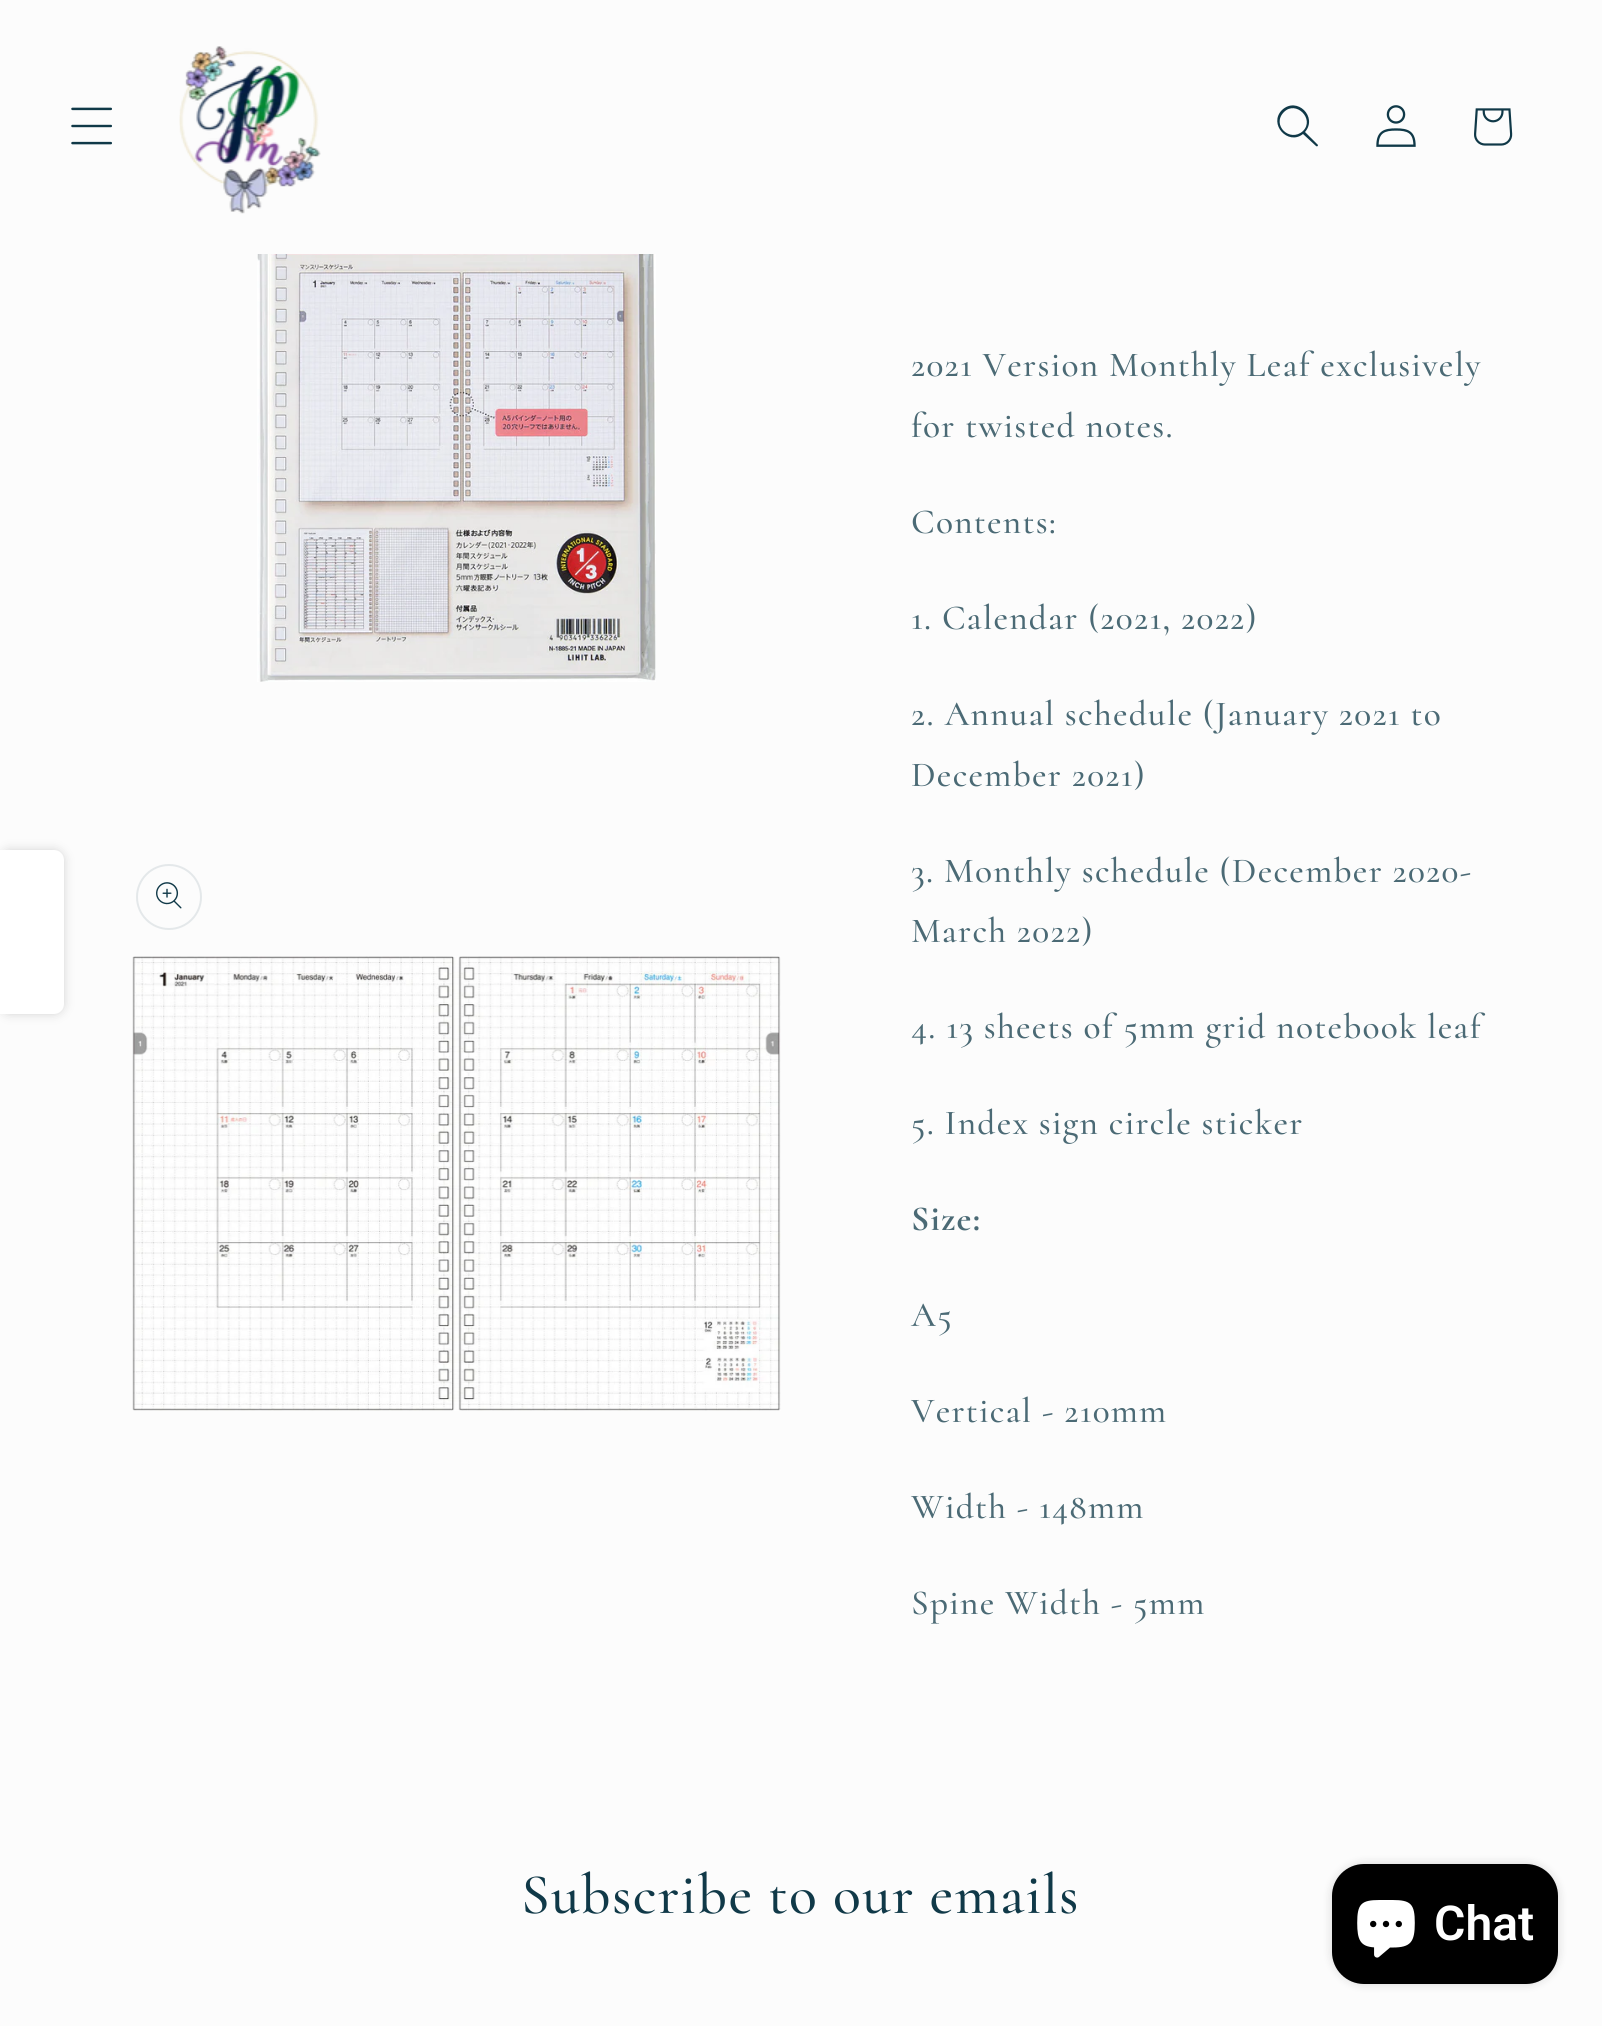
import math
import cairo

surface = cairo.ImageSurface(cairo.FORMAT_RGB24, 1602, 2026)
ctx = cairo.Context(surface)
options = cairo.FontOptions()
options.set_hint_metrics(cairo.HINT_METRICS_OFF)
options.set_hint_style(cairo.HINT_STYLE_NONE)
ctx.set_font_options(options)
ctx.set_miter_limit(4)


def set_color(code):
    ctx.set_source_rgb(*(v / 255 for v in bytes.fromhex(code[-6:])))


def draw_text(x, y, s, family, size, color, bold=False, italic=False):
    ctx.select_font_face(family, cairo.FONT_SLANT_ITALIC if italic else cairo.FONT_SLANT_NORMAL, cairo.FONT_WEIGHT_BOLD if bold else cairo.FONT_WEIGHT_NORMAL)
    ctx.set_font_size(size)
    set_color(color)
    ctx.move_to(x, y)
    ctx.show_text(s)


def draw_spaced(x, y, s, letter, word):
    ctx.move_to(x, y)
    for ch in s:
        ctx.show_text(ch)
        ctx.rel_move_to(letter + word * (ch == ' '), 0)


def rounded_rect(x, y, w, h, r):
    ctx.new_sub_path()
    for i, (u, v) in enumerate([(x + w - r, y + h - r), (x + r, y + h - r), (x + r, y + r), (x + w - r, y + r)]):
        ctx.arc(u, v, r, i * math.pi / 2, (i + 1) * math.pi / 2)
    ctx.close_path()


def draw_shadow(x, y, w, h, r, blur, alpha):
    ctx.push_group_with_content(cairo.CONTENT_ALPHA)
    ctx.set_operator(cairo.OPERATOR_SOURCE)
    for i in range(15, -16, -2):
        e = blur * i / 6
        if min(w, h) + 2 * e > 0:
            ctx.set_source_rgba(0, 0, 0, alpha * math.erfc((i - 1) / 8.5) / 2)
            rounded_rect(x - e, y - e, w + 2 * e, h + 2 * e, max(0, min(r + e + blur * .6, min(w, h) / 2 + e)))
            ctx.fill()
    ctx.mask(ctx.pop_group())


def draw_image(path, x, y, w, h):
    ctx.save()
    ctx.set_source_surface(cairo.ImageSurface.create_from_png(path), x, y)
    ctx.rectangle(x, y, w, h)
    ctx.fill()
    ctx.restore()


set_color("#fcfcfc")
ctx.paint()
draw_image("assets/img1.png", 71, 107, 41, 38)
draw_image("assets/img2.png", 179, 46, 142, 168)
set_color("#103948")
ctx.set_fill_rule(cairo.FILL_RULE_EVEN_ODD)
ctx.new_path()
ctx.move_to(1303, 131)
ctx.curve_to(1290, 143, 1271, 125, 1284, 112)
ctx.curve_to(1296, 100, 1315, 119, 1303, 131)
ctx.move_to(1303, 134)
ctx.curve_to(1288, 146, 1268, 124, 1282, 110)
ctx.curve_to(1297, 96, 1318, 117, 1305, 132)
ctx.line_to(1318, 145)
ctx.curve_to(1318, 146, 1317, 147, 1316, 146)
ctx.close_path()
ctx.fill()
draw_image("assets/img3.png", 1376, 105, 40, 42)
draw_image("assets/img4.png", 1474, 108, 39, 38)
set_color("#d3d3d3")
draw_shadow(0, 850, 64, 164, 10, 5, 1)
set_color("#ffffff")
ctx.new_path()
ctx.move_to(0, 850)
ctx.line_to(54, 850)
ctx.curve_to(59.5, 850, 64, 854.5, 64, 860)
ctx.line_to(64, 1004)
ctx.curve_to(64, 1009.5, 59.5, 1014, 54, 1014)
ctx.line_to(0, 1014)
ctx.close_path()
ctx.fill()
draw_image("assets/img5.png", 257, 254, 399, 428)
ctx.arc(169, 897, 32, 0, 2 * math.pi)
set_color("#e4e8ea")
ctx.stroke()
draw_image("assets/img6.png", 156, 882, 26, 27)
draw_image("assets/img7.png", 132, 956, 649, 455)
ctx.select_font_face("Cormorant Medium")
ctx.set_font_size(35.25)
set_color("#4b6a75")
draw_spaced(911, 376, "2021 Version Monthly Leaf exclusively", 1.3, 0)
draw_spaced(911, 437, "for twisted notes.", 1.3, 0)
draw_spaced(911, 533, "Contents:", 1.3, 0)
draw_spaced(911, 629, "1. Calendar (2021, 2022)", 1.3, 0)
draw_spaced(911, 725, "2. Annual schedule (January 2021 to", 1.3, 0)
draw_spaced(911, 786, "December 2021)", 1.3, 0)
draw_spaced(911, 882, "3. Monthly schedule (December 2020-", 1.3, 0)
draw_spaced(911, 942, "March 2022)", 1.3, 0)
draw_spaced(911, 1038, "4. 13 sheets of 5mm grid notebook leaf", 1.3, 0)
draw_spaced(911, 1134, "5. Index sign circle sticker", 1.3, 0)
ctx.select_font_face("Cormorant", cairo.FONT_SLANT_NORMAL, cairo.FONT_WEIGHT_BOLD)
draw_spaced(911, 1230, "Size:", 1.3, 0)
ctx.select_font_face("Cormorant Medium")
draw_spaced(911, 1326, "A5", 1.3, 0)
draw_spaced(911, 1422, "Vertical - 210mm", 1.3, 0)
draw_spaced(911, 1518, "Width - 148mm", 1.3, 0)
draw_spaced(911, 1614, "Spine Width - 5mm", 1.3, 0)
ctx.set_font_size(57.5)
set_color("#103948")
draw_spaced(521, 1913, "Subscribe to our emails", 1.4, 0)
set_color("#000000")
draw_shadow(1332, 1864, 226, 120, 32, 5, 0.15)
set_color("#000000")
rounded_rect(1332, 1864, 226, 120, 32)
ctx.fill()
draw_image("assets/img8.png", 1357, 1900, 58, 58)
draw_text(1434, 1940, "Chat", "Roboto SemiBold", 48, "#ffffff")
surface.write_to_png("output.png")
